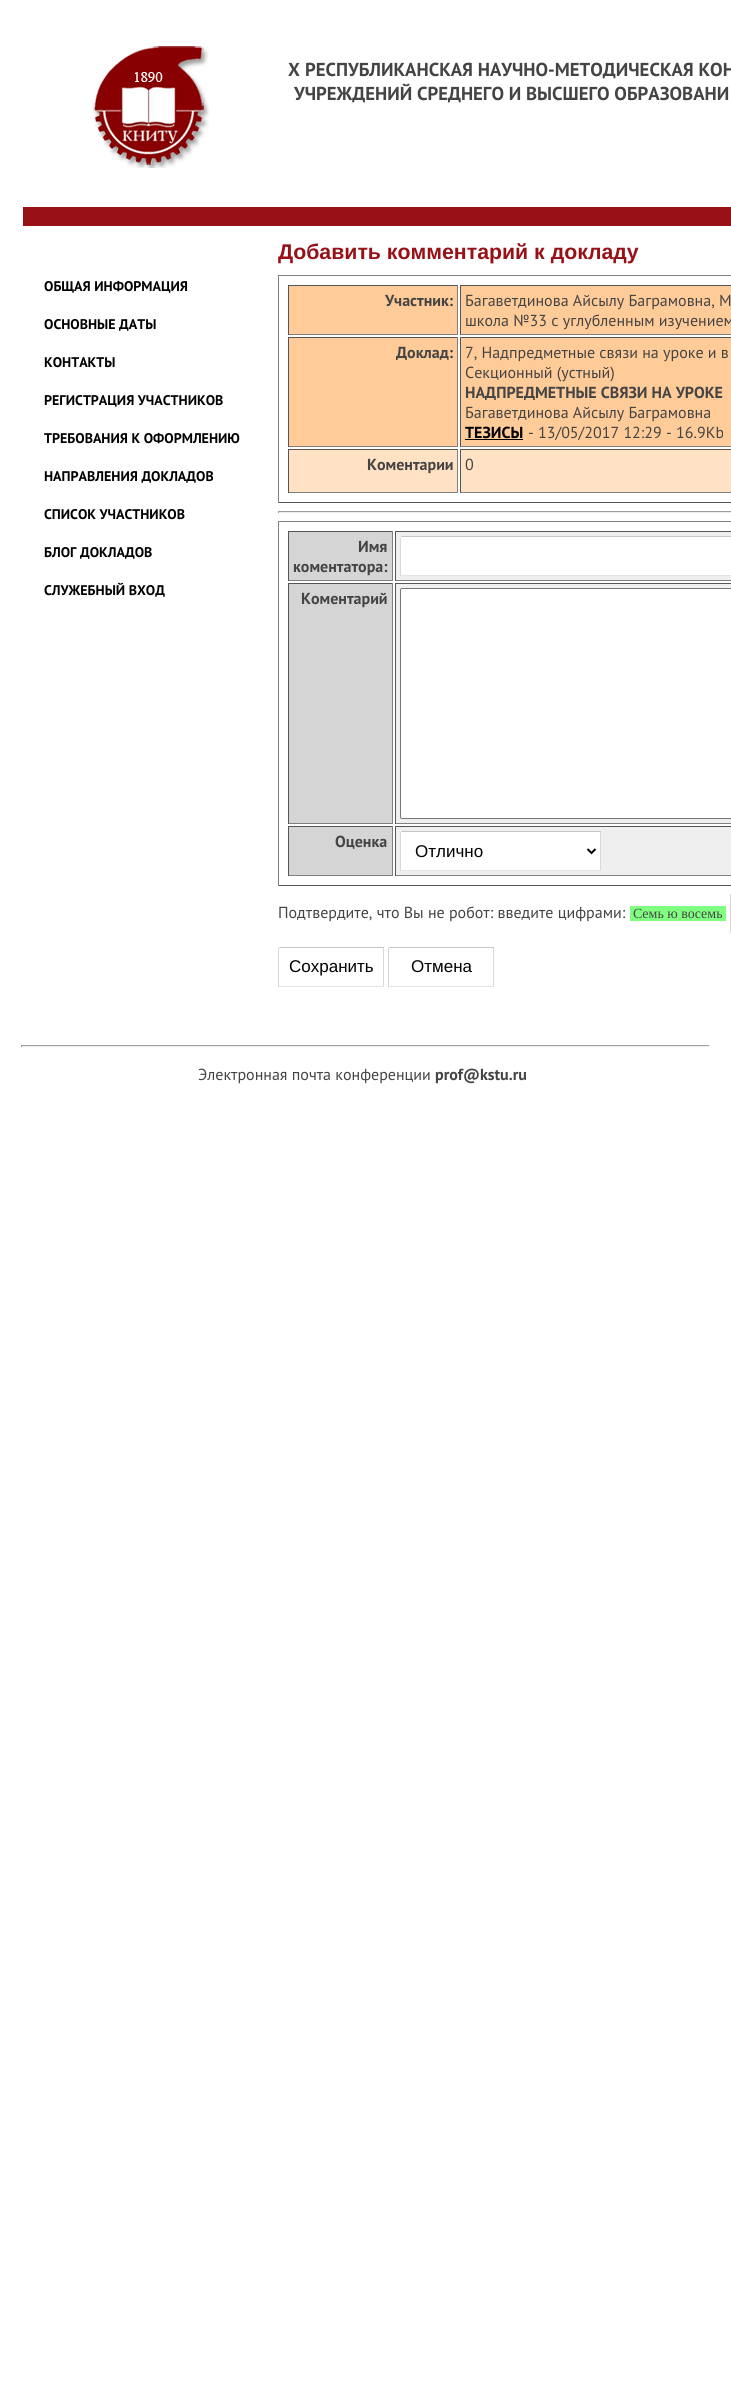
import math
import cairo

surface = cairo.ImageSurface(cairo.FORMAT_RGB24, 731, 2407)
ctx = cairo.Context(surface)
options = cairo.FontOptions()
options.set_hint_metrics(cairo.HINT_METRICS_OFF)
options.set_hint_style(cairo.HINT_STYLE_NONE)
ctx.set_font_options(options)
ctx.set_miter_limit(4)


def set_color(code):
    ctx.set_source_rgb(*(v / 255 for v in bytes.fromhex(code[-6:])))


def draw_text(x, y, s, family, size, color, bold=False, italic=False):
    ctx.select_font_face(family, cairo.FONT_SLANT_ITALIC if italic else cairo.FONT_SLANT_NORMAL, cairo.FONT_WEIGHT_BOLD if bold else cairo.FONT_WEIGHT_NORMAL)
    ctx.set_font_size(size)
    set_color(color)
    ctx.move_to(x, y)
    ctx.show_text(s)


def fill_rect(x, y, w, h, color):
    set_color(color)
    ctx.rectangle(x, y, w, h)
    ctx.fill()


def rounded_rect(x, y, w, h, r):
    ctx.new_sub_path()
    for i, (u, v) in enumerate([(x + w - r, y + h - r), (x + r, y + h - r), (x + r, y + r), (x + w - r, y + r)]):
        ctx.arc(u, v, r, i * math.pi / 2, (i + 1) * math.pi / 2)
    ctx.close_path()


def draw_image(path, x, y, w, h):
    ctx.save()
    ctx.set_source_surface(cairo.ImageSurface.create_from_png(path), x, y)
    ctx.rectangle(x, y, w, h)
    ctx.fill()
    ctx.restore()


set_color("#ffffff")
ctx.paint()
draw_image("assets/img1.png", 93, 46, 116, 122)
draw_text(288, 76, "X", "PT Sans", 18.75, "#444444", bold=True)
draw_text(305, 76, "РЕСПУБЛИКАНСКАЯ НАУЧНО-МЕТОДИЧЕСКАЯ КОН", "PT Sans", 18.75, "#444444", bold=True)
draw_text(294, 100, "УЧРЕЖДЕНИЙ СРЕДНЕГО И ВЫСШЕГО ОБРАЗОВАНИ", "PT Sans", 18.75, "#444444", bold=True)
fill_rect(23, 207, 708, 19, "#981117")
draw_text(44, 291, "ОБЩАЯ ИНФОРМАЦИЯ", "PT Sans", 14, "#000000", bold=True)
draw_text(44, 329, "ОСНОВНЫЕ ДАТЫ", "PT Sans", 14, "#000000", bold=True)
draw_text(44, 367, "КОНТАКТЫ", "PT Sans", 14, "#000000", bold=True)
draw_text(44, 405, "РЕГИСТРАЦИЯ УЧАСТНИКОВ", "PT Sans", 14, "#000000", bold=True)
draw_text(44, 443, "ТРЕБОВАНИЯ К ОФОРМЛЕНИЮ", "PT Sans", 14, "#000000", bold=True)
draw_text(44, 481, "НАПРАВЛЕНИЯ ДОКЛАДОВ", "PT Sans", 14, "#000000", bold=True)
draw_text(44, 519, "СПИСОК УЧАСТНИКОВ", "PT Sans", 14, "#000000", bold=True)
draw_text(44, 557, "БЛОГ ДОКЛАДОВ", "PT Sans", 14, "#000000", bold=True)
draw_text(44, 595, "СЛУЖЕБНЫЙ ВХОД", "PT Sans", 14, "#000000", bold=True)
draw_text(278, 259, "Добавить комментарий к докладу", "Liberation Sans", 21.3, "#981117", bold=True)
fill_rect(278, 275, 453, 1, "#808080")
fill_rect(278, 502, 453, 1, "#555555")
fill_rect(278, 275, 1, 228, "#808080")
fill_rect(289, 286, 168, 48, "#ffcc99")
fill_rect(288, 285, 170, 1, "#555555")
fill_rect(457, 285, 1, 50, "#808080")
fill_rect(288, 334, 170, 1, "#808080")
fill_rect(288, 285, 1, 50, "#555555")
draw_text(385, 306, "Участник:", "PT Sans", 16, "#444444", bold=True)
fill_rect(461, 286, 270, 48, "#ffcc99")
fill_rect(460, 285, 271, 1, "#555555")
fill_rect(460, 334, 271, 1, "#808080")
fill_rect(460, 285, 1, 50, "#555555")
draw_text(465, 306, "Багаветдинова Айсылу Баграмовна, М", "PT Sans", 16, "#444444")
draw_text(465, 326, "школа №33 с углубленным изучением", "PT Sans", 16, "#444444")
fill_rect(289, 338, 168, 108, "#ffcc99")
fill_rect(288, 337, 170, 1, "#555555")
fill_rect(457, 337, 1, 110, "#808080")
fill_rect(288, 446, 170, 1, "#808080")
fill_rect(288, 337, 1, 110, "#555555")
draw_text(396, 358, "Доклад:", "PT Sans", 16, "#444444", bold=True)
fill_rect(461, 338, 270, 108, "#ffcc99")
fill_rect(460, 337, 271, 1, "#555555")
fill_rect(460, 446, 271, 1, "#808080")
fill_rect(460, 337, 1, 110, "#555555")
draw_text(465, 358, "7, Надпредметные связи на уроке и в", "PT Sans", 16, "#444444")
draw_text(465, 378, "Секционный (устный)", "PT Sans", 16, "#444444")
draw_text(465, 398, "НАДПРЕДМЕТНЫЕ СВЯЗИ НА УРОКЕ", "PT Sans", 16, "#444444", bold=True)
draw_text(465, 418, "Багаветдинова Айсылу Баграмовна", "PT Sans", 16, "#444444")
draw_text(465, 438, "ТЕЗИСЫ", "PT Sans", 16, "#000000", bold=True)
fill_rect(465, 439, 58, 1, "#000000")
draw_text(528, 438, "- 13/05/2017 12:29 - 16.9Kb", "PT Sans", 16, "#444444")
fill_rect(289, 450, 168, 42, "#ffe1c4")
fill_rect(288, 449, 170, 1, "#555555")
fill_rect(457, 449, 1, 44, "#808080")
fill_rect(288, 492, 170, 1, "#808080")
fill_rect(288, 449, 1, 44, "#555555")
draw_text(367, 470, "Коментарии", "PT Sans", 16, "#444444", bold=True)
fill_rect(461, 450, 270, 42, "#ffe1c4")
fill_rect(460, 449, 271, 1, "#555555")
fill_rect(460, 492, 271, 1, "#808080")
fill_rect(460, 449, 1, 44, "#555555")
draw_text(465, 470, "0", "PT Sans", 16, "#444444")
fill_rect(278, 511, 453, 1, "#9f9f9f")
fill_rect(278, 512, 453, 1, "#eeeeee")
fill_rect(278, 511, 1, 2, "#9f9f9f")
fill_rect(278, 521, 453, 1, "#808080")
fill_rect(278, 885, 453, 1, "#555555")
fill_rect(278, 521, 1, 365, "#808080")
fill_rect(289, 532, 103, 48, "#d5d5d5")
fill_rect(288, 531, 105, 1, "#555555")
fill_rect(392, 531, 1, 50, "#808080")
fill_rect(288, 580, 105, 1, "#808080")
fill_rect(288, 531, 1, 50, "#555555")
draw_text(358, 552, "Имя", "PT Sans", 16, "#444444", bold=True)
draw_text(293, 572, "коментатора:", "PT Sans", 16, "#444444", bold=True)
fill_rect(396, 532, 335, 48, "#efefef")
fill_rect(395, 531, 336, 1, "#555555")
fill_rect(395, 580, 336, 1, "#808080")
fill_rect(395, 531, 1, 50, "#555555")
set_color("#ffffff")
rounded_rect(400, 536, 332, 40, 1)
ctx.fill()
fill_rect(401, 536, 330, 1, "#c6c6c6")
fill_rect(401, 575, 330, 1, "#e4e4e4")
fill_rect(400, 537, 1, 39, "#d9d9d9")
fill_rect(289, 584, 103, 239, "#d5d5d5")
fill_rect(288, 583, 105, 1, "#555555")
fill_rect(392, 583, 1, 241, "#808080")
fill_rect(288, 823, 105, 1, "#808080")
fill_rect(288, 583, 1, 241, "#555555")
draw_text(301, 604, "Коментарий", "PT Sans", 16, "#444444", bold=True)
fill_rect(396, 584, 335, 239, "#efefef")
fill_rect(395, 583, 336, 1, "#555555")
fill_rect(395, 823, 336, 1, "#808080")
fill_rect(395, 583, 1, 241, "#555555")
set_color("#ffffff")
rounded_rect(400.5, 588.5, 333, 230, 1.5)
ctx.fill_preserve()
set_color("#767676")
ctx.set_line_width(1)
ctx.stroke()
fill_rect(289, 827, 103, 48, "#d5d5d5")
fill_rect(288, 826, 105, 1, "#555555")
fill_rect(392, 826, 1, 50, "#808080")
fill_rect(288, 875, 105, 1, "#808080")
fill_rect(288, 826, 1, 50, "#555555")
draw_text(335, 847, "Оценка", "PT Sans", 16, "#444444", bold=True)
fill_rect(396, 827, 335, 48, "#efefef")
fill_rect(395, 826, 336, 1, "#555555")
fill_rect(395, 875, 336, 1, "#808080")
fill_rect(395, 826, 1, 50, "#555555")
set_color("#ffffff")
rounded_rect(400, 831, 201, 40, 1)
ctx.fill()
fill_rect(401, 831, 200, 1, "#c6c6c6")
fill_rect(600, 832, 1, 39, "#d9d9d9")
fill_rect(401, 870, 200, 1, "#e4e4e4")
fill_rect(400, 832, 1, 39, "#d9d9d9")
ctx.new_path()
ctx.move_to(587.5, 849)
ctx.line_to(591.5, 853)
ctx.line_to(595.5, 849)
set_color("#000000")
ctx.set_line_width(2)
ctx.stroke()
draw_text(415, 857, "Отлично", "Liberation Sans", 17, "#000000")
draw_text(278, 918, "Подтвердите, что Вы не робот: введите цифрами:", "PT Sans", 16, "#444444")
fill_rect(630, 906, 96, 15, "#80ff80")
draw_text(633, 918, "Семь ю восемь", "Liberation Serif", 14, "#444444")
fill_rect(730, 894, 1, 39, "#d9d9d9")
fill_rect(279, 947, 105, 1, "#c6c6c6")
fill_rect(383, 948, 1, 39, "#d9d9d9")
fill_rect(279, 986, 105, 1, "#e4e4e4")
fill_rect(278, 948, 1, 39, "#d9d9d9")
draw_text(289, 972, "Сохранить", "Liberation Sans", 17, "#000000")
fill_rect(389, 947, 105, 1, "#c6c6c6")
fill_rect(493, 948, 1, 39, "#d9d9d9")
fill_rect(389, 986, 105, 1, "#e4e4e4")
fill_rect(388, 948, 1, 39, "#d9d9d9")
draw_text(411, 972, "Отмена", "Liberation Sans", 17, "#000000")
fill_rect(21, 1045, 689, 1, "#9f9f9f")
fill_rect(709, 1045, 1, 2, "#eeeeee")
fill_rect(21, 1046, 689, 1, "#eeeeee")
fill_rect(21, 1045, 1, 2, "#9f9f9f")
draw_text(198, 1080, "Электронная почта конференции", "PT Sans", 16, "#444444")
draw_text(435, 1080, "prof@kstu.ru", "PT Sans", 16, "#444444", bold=True)
surface.write_to_png("output.png")
